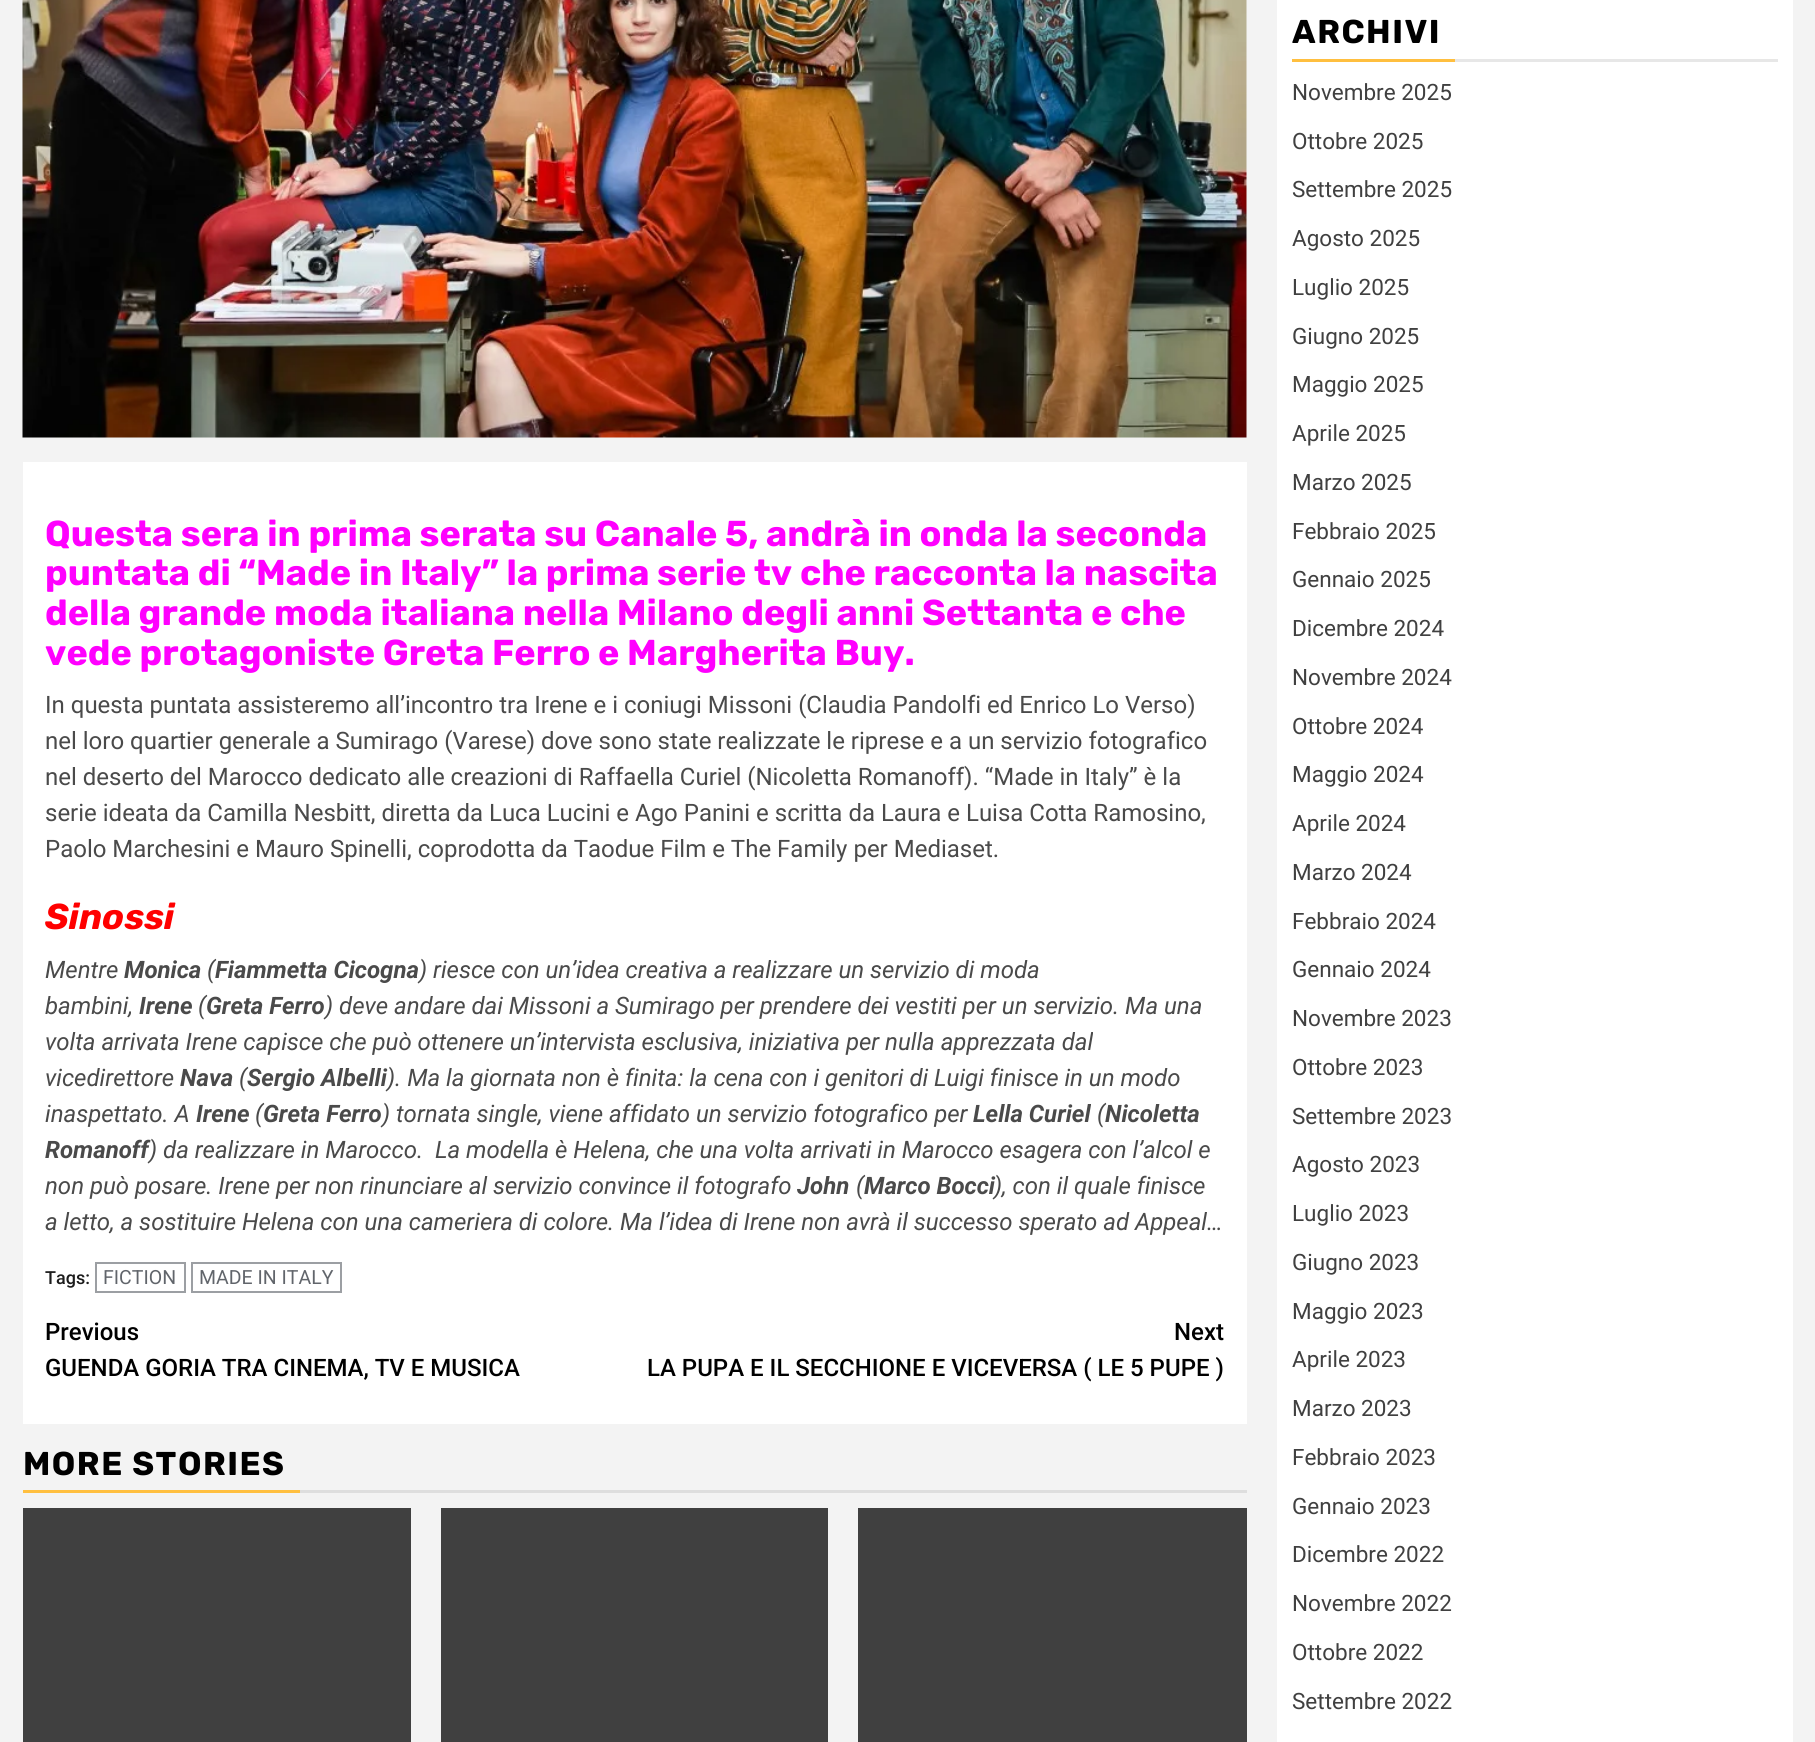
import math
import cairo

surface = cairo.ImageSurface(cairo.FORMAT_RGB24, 1815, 1742)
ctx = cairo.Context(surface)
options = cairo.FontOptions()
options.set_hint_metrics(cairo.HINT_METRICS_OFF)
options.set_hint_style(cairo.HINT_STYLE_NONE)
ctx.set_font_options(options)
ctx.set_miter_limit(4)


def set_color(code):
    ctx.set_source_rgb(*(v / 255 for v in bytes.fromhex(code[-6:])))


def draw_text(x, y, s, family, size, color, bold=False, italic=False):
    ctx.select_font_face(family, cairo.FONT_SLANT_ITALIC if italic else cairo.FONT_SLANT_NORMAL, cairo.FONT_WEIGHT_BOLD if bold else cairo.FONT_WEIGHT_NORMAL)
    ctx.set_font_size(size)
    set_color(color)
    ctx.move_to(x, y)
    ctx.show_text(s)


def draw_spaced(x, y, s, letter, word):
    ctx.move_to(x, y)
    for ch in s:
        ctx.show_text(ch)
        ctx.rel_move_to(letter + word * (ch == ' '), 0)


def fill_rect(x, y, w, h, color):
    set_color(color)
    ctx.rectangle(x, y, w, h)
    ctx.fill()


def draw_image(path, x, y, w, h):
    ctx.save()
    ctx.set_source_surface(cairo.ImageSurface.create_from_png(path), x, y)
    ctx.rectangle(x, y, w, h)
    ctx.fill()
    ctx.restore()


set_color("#f3f3f3")
ctx.paint()
draw_image("assets/img1.png", 22, 0, 1225, 438)
fill_rect(23, 462, 1224, 962, "#ffffff")
draw_text(45, 546, "Questa sera in prima serata su Canale 5, andrà in onda la seconda", "Rubik", 36, "#ff00ff", bold=True)
draw_text(45, 585, "puntata di “Made in Italy” la prima serie tv che racconta la nascita", "Rubik", 36, "#ff00ff", bold=True)
draw_text(45, 625, "della grande moda italiana nella Milano degli anni Settanta e che", "Rubik", 36, "#ff00ff", bold=True)
draw_text(45, 665, "vede protagoniste Greta Ferro e Margherita Buy.", "Rubik", 36, "#ff00ff", bold=True)
draw_text(45, 713, "In questa puntata assisteremo all’incontro tra Irene e i coniugi Missoni (Claudia Pandolfi ed Enrico Lo Verso)", "Roboto", 24, "#4a4a4a")
draw_text(45, 749, "nel loro quartier generale a Sumirago (Varese) dove sono state realizzate le riprese e a un servizio fotografico", "Roboto", 24, "#4a4a4a")
draw_text(45, 785, "nel deserto del Marocco dedicato alle creazioni di Raffaella Curiel (Nicoletta Romanoff). “Made in Italy” è la", "Roboto", 24, "#4a4a4a")
draw_text(45, 821, "serie ideata da Camilla Nesbitt, diretta da Luca Lucini e Ago Panini e scritta da Laura e Luisa Cotta Ramosino,", "Roboto", 24, "#4a4a4a")
draw_text(45, 857, "Paolo Marchesini e Mauro Spinelli, coprodotta da Taodue Film e The Family per Mediaset.", "Roboto", 24, "#4a4a4a")
draw_text(45, 929, "Sinossi", "Rubik", 36, "#ff0000", bold=True, italic=True)
draw_text(45, 978, "Mentre", "Roboto", 24, "#4a4a4a", italic=True)
draw_text(124, 978, "Monica", "Roboto", 24, "#4a4a4a", bold=True, italic=True)
draw_text(207, 978, "(", "Roboto", 24, "#4a4a4a", italic=True)
draw_text(215, 978, "Fiammetta Cicogna", "Roboto", 24, "#4a4a4a", bold=True, italic=True)
draw_text(419, 978, ") riesce con un’idea creativa a realizzare un servizio di moda", "Roboto", 24, "#4a4a4a", italic=True)
draw_text(45, 1014, "bambini,", "Roboto", 24, "#4a4a4a", italic=True)
draw_text(139, 1014, "Irene", "Roboto", 24, "#4a4a4a", bold=True, italic=True)
draw_text(198, 1014, "(", "Roboto", 24, "#4a4a4a", italic=True)
draw_text(206, 1014, "Greta Ferro", "Roboto", 24, "#4a4a4a", bold=True, italic=True)
draw_text(325, 1014, ") deve andare dai Missoni a Sumirago per prendere dei vestiti per un servizio. Ma una", "Roboto", 24, "#4a4a4a", italic=True)
draw_text(45, 1050, "volta arrivata Irene capisce che può ottenere un’intervista esclusiva, iniziativa per nulla apprezzata dal", "Roboto", 24, "#4a4a4a", italic=True)
draw_text(45, 1086, "vicedirettore", "Roboto", 24, "#4a4a4a", italic=True)
draw_text(180, 1086, "Nava", "Roboto", 24, "#4a4a4a", bold=True, italic=True)
draw_text(239, 1086, "(", "Roboto", 24, "#4a4a4a", italic=True)
draw_text(247, 1086, "Sergio Albelli", "Roboto", 24, "#4a4a4a", bold=True, italic=True)
draw_text(387, 1086, "). Ma la giornata non è finita: la cena con i genitori di Luigi finisce in un modo", "Roboto", 24, "#4a4a4a", italic=True)
draw_text(45, 1122, "inaspettato. A", "Roboto", 24, "#4a4a4a", italic=True)
draw_text(196, 1122, "Irene", "Roboto", 24, "#4a4a4a", bold=True, italic=True)
draw_text(255, 1122, "(", "Roboto", 24, "#4a4a4a", italic=True)
draw_text(263, 1122, "Greta Ferro", "Roboto", 24, "#4a4a4a", bold=True, italic=True)
draw_text(382, 1122, ") tornata single, viene affidato un servizio fotografico per", "Roboto", 24, "#4a4a4a", italic=True)
draw_text(973, 1122, "Lella Curiel", "Roboto", 24, "#4a4a4a", bold=True, italic=True)
draw_text(1097, 1122, "(", "Roboto", 24, "#4a4a4a", italic=True)
draw_text(1105, 1122, "Nicoletta", "Roboto", 24, "#4a4a4a", bold=True, italic=True)
draw_text(45, 1158, "Romanoff", "Roboto", 24, "#4a4a4a", bold=True, italic=True)
draw_text(149, 1158, ") da realizzare in Marocco.  La modella è Helena, che una volta arrivati in Marocco esagera con l’alcol e", "Roboto", 24, "#4a4a4a", italic=True)
draw_text(45, 1194, "non può posare. Irene per non rinunciare al servizio convince il fotografo", "Roboto", 24, "#4a4a4a", italic=True)
draw_text(797, 1194, "John", "Roboto", 24, "#4a4a4a", bold=True, italic=True)
draw_text(856, 1194, "(", "Roboto", 24, "#4a4a4a", italic=True)
draw_text(864, 1194, "Marco Bocci", "Roboto", 24, "#4a4a4a", bold=True, italic=True)
draw_text(994, 1194, "), con il quale finisce", "Roboto", 24, "#4a4a4a", italic=True)
draw_text(45, 1230, "a letto, a sostituire Helena con una cameriera di colore. Ma l’idea di Irene non avrà il successo sperato ad Appeal…", "Roboto", 24, "#4a4a4a", italic=True)
draw_text(45, 1284, "Tags:", "Roboto Medium", 18, "#1c1c1c")
ctx.rectangle(96, 1263, 89, 29)
set_color("#9c9fa3")
ctx.stroke()
draw_text(103, 1284, "FICTION", "Roboto", 19.5, "#61656b")
ctx.rectangle(192, 1263, 149, 29)
set_color("#9c9fa3")
ctx.stroke()
draw_text(199, 1284, "MADE IN ITALY", "Roboto", 19.5, "#61656b")
draw_text(45, 1340, "Previous", "Roboto Medium", 24, "#000000")
draw_text(45, 1376, "GUENDA GORIA TRA CINEMA, TV E MUSICA", "Roboto Medium", 24, "#000000")
draw_text(1174, 1340, "Next", "Roboto Medium", 24, "#000000")
draw_text(647, 1376, "LA PUPA E IL SECCHIONE E VICEVERSA ( LE 5 PUPE )", "Roboto Medium", 24, "#000000")
fill_rect(23, 1490, 277, 3, "#ffbf3f")
ctx.select_font_face("Rubik", cairo.FONT_SLANT_NORMAL, cairo.FONT_WEIGHT_BOLD)
ctx.set_font_size(33)
set_color("#000000")
draw_spaced(23, 1475, "MORE STORIES", 1.5, 0)
fill_rect(300, 1490, 947, 3, "#dedede")
fill_rect(23, 1508, 388, 234, "#404040")
fill_rect(441, 1508, 387, 234, "#404040")
fill_rect(858, 1508, 389, 234, "#404040")
fill_rect(1277, 0, 516, 1742, "#ffffff")
fill_rect(1292, 59, 163, 3, "#ffbf3f")
set_color("#000000")
draw_spaced(1292, 43, "ARCHIVI", 1.5, 0)
fill_rect(1455, 59, 323, 3, "#e7e7e7")
draw_text(1292, 100, "Novembre 2025", "Roboto", 22.5, "#404040")
draw_text(1292, 149, "Ottobre 2025", "Roboto", 22.5, "#404040")
draw_text(1292, 197, "Settembre 2025", "Roboto", 22.5, "#404040")
draw_text(1292, 246, "Agosto 2025", "Roboto", 22.5, "#404040")
draw_text(1292, 295, "Luglio 2025", "Roboto", 22.5, "#404040")
draw_text(1292, 344, "Giugno 2025", "Roboto", 22.5, "#404040")
draw_text(1292, 392, "Maggio 2025", "Roboto", 22.5, "#404040")
draw_text(1292, 441, "Aprile 2025", "Roboto", 22.5, "#404040")
draw_text(1292, 490, "Marzo 2025", "Roboto", 22.5, "#404040")
draw_text(1292, 539, "Febbraio 2025", "Roboto", 22.5, "#404040")
draw_text(1292, 587, "Gennaio 2025", "Roboto", 22.5, "#404040")
draw_text(1292, 636, "Dicembre 2024", "Roboto", 22.5, "#404040")
draw_text(1292, 685, "Novembre 2024", "Roboto", 22.5, "#404040")
draw_text(1292, 734, "Ottobre 2024", "Roboto", 22.5, "#404040")
draw_text(1292, 782, "Maggio 2024", "Roboto", 22.5, "#404040")
draw_text(1292, 831, "Aprile 2024", "Roboto", 22.5, "#404040")
draw_text(1292, 880, "Marzo 2024", "Roboto", 22.5, "#404040")
draw_text(1292, 929, "Febbraio 2024", "Roboto", 22.5, "#404040")
draw_text(1292, 977, "Gennaio 2024", "Roboto", 22.5, "#404040")
draw_text(1292, 1026, "Novembre 2023", "Roboto", 22.5, "#404040")
draw_text(1292, 1075, "Ottobre 2023", "Roboto", 22.5, "#404040")
draw_text(1292, 1124, "Settembre 2023", "Roboto", 22.5, "#404040")
draw_text(1292, 1172, "Agosto 2023", "Roboto", 22.5, "#404040")
draw_text(1292, 1221, "Luglio 2023", "Roboto", 22.5, "#404040")
draw_text(1292, 1270, "Giugno 2023", "Roboto", 22.5, "#404040")
draw_text(1292, 1319, "Maggio 2023", "Roboto", 22.5, "#404040")
draw_text(1292, 1367, "Aprile 2023", "Roboto", 22.5, "#404040")
draw_text(1292, 1416, "Marzo 2023", "Roboto", 22.5, "#404040")
draw_text(1292, 1465, "Febbraio 2023", "Roboto", 22.5, "#404040")
draw_text(1292, 1514, "Gennaio 2023", "Roboto", 22.5, "#404040")
draw_text(1292, 1562, "Dicembre 2022", "Roboto", 22.5, "#404040")
draw_text(1292, 1611, "Novembre 2022", "Roboto", 22.5, "#404040")
draw_text(1292, 1660, "Ottobre 2022", "Roboto", 22.5, "#404040")
draw_text(1292, 1709, "Settembre 2022", "Roboto", 22.5, "#404040")
surface.write_to_png("output.png")
